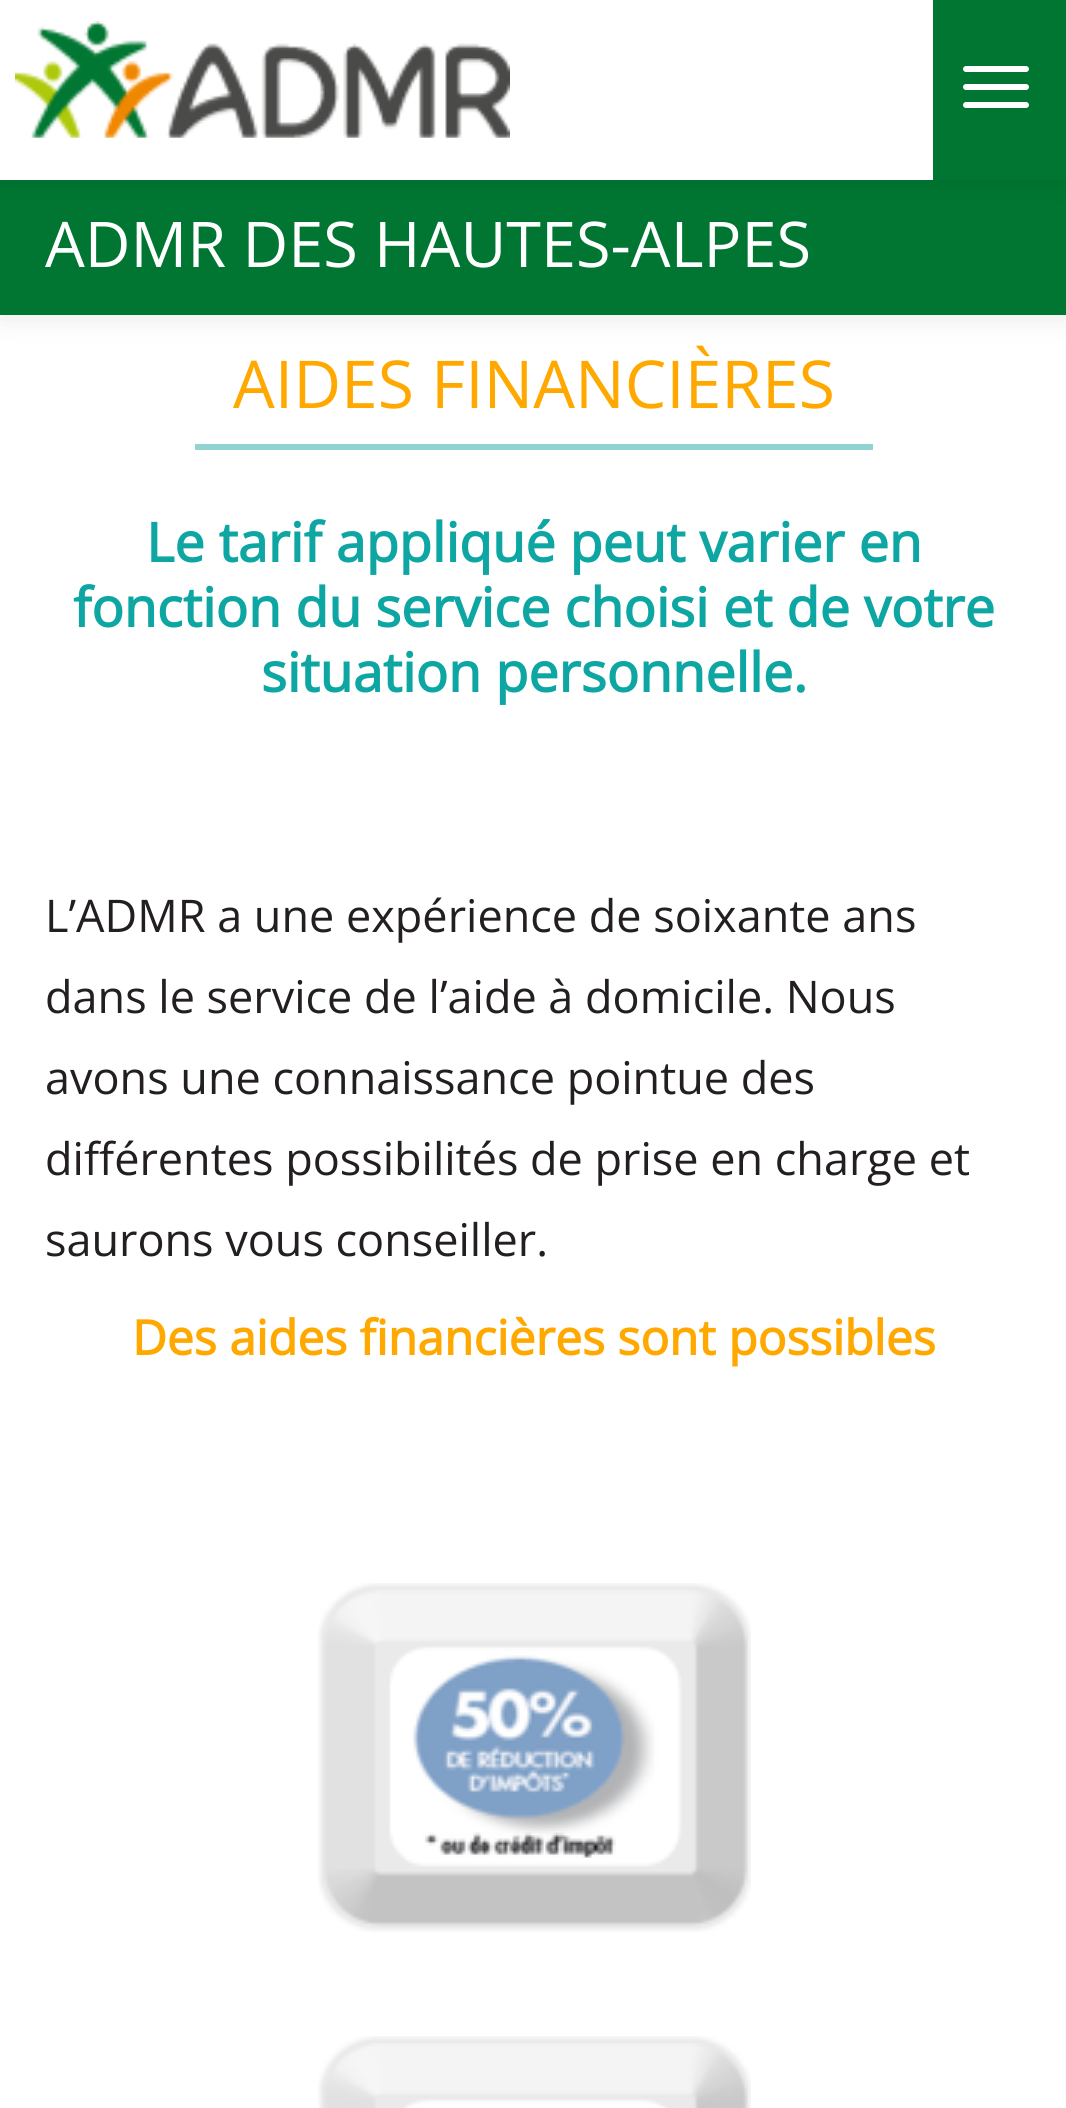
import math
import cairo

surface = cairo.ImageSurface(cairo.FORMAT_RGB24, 1066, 2108)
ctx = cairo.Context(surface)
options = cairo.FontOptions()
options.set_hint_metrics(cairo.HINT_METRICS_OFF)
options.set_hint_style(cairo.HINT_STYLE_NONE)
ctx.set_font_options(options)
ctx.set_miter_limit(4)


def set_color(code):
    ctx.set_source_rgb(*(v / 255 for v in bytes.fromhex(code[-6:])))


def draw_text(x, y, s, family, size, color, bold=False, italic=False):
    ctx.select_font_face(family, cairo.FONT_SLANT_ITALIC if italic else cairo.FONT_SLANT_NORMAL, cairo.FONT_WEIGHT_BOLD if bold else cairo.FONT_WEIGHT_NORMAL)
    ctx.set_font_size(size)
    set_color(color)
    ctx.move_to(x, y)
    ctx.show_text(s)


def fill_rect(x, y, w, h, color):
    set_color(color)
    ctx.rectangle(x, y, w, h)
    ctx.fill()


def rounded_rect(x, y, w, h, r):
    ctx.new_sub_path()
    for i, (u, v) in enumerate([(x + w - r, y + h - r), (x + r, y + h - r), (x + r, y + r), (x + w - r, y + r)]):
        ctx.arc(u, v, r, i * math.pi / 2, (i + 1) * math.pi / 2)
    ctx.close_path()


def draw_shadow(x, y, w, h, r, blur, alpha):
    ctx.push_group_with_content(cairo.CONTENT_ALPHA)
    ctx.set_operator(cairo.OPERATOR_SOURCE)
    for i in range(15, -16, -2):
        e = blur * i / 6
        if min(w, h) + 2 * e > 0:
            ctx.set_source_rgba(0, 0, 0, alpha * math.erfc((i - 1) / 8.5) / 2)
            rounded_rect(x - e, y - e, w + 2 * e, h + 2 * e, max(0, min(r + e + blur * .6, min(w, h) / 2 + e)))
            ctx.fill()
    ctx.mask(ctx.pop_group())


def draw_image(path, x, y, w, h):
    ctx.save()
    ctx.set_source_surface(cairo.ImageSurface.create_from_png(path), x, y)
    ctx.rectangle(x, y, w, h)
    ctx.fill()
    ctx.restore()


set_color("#ffffff")
ctx.paint()
set_color("#000000")
draw_shadow(0, 177, 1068, 138, 0, 15, 0.1)
fill_rect(0, 180, 1066, 135, "#007632")
set_color("#000000")
draw_shadow(0, 0, 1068, 180, 0, 15, 0.1)
fill_rect(0, 0, 933, 180, "#ffffff")
draw_image("assets/img1.png", 15, 21, 495, 117)
fill_rect(933, 0, 133, 180, "#007632")
set_color("#ffffff")
rounded_rect(963, 66, 66, 6, 3)
ctx.fill()
rounded_rect(963, 84, 66, 6, 3)
ctx.fill()
rounded_rect(963, 102, 66, 6, 3)
ctx.fill()
draw_text(45, 267, "ADMR DES HAUTES-ALPES", "Open Sans", 63, "#ffffff")
fill_rect(195, 444, 678, 6, "#90d3d0")
draw_text(233, 408, "AIDES FINANCIÈRES", "Open Sans", 66, "#ffa800")
draw_text(146, 562, "Le tarif appliqué peut varier en", "Open Sans", 54, "#0da6a2", bold=True)
draw_text(73, 627, "fonction du service choisi et de votre", "Open Sans", 54, "#0da6a2", bold=True)
draw_text(261, 692, "situation personnelle.", "Open Sans", 54, "#0da6a2", bold=True)
draw_text(45, 932, "L’ADMR a une expérience de soixante ans", "Open Sans", 45, "#231f20")
draw_text(45, 1013, "dans le service de l’aide à domicile. Nous", "Open Sans", 45, "#231f20")
draw_text(45, 1094, "avons une connaissance pointue des", "Open Sans", 45, "#231f20")
draw_text(45, 1175, "différentes possibilités de prise en charge et", "Open Sans", 45, "#231f20")
draw_text(45, 1256, "saurons vous conseiller.", "Open Sans", 45, "#231f20")
draw_text(132, 1355, "Des aides financières sont possibles", "Open Sans", 48, "#ffa800", bold=True)
draw_image("assets/img2.png", 318, 1583, 433, 349)
draw_image("assets/img3.png", 318, 2036, 433, 72)
surface.write_to_png("output.png")
